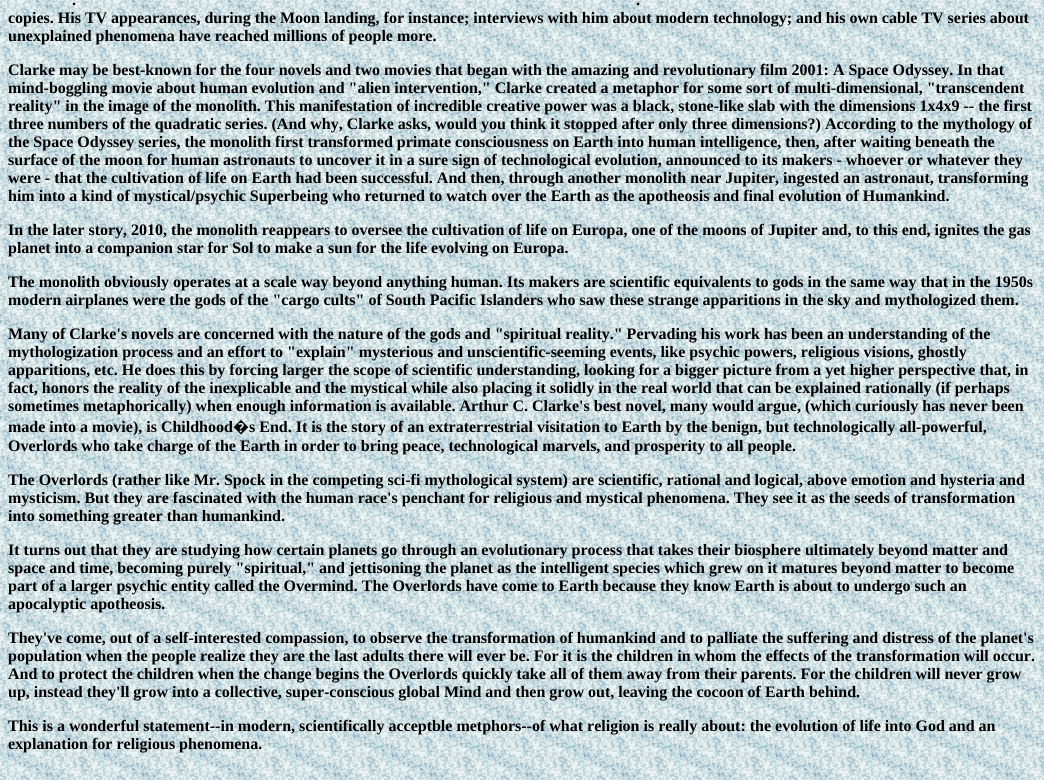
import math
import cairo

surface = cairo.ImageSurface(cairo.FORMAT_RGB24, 1044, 780)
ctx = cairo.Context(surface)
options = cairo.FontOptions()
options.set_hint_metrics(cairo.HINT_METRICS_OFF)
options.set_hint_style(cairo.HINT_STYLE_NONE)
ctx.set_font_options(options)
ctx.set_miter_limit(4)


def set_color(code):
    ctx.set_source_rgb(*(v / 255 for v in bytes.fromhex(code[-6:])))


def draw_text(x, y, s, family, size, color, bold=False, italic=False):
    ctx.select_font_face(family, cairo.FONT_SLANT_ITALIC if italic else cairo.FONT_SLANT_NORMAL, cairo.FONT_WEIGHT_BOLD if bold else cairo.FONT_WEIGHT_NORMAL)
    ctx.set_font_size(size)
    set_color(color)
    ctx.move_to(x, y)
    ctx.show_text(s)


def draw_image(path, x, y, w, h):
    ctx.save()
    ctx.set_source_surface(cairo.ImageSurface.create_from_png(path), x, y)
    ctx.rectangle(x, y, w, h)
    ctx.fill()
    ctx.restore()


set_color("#ffffff")
ctx.paint()
draw_image("assets/img1.png", 0, 0, 1044, 780)
draw_text(72, 5, ".", "Liberation Serif", 16, "#000000", bold=True)
draw_text(636, 5, ".", "Liberation Serif", 16, "#000000", bold=True)
draw_text(8, 23, "copies. His TV appearances, during the Moon landing, for instance; interviews with him about modern technology; and his own cable TV series about", "Liberation Serif", 16, "#000000", bold=True)
draw_text(8, 41, "unexplained phenomena have reached millions of people more.", "Liberation Serif", 16, "#000000", bold=True)
draw_text(8, 75, "Clarke may be best-known for the four novels and two movies that began with the amazing and revolutionary film 2001: A Space Odyssey. In that", "Liberation Serif", 16, "#000000", bold=True)
draw_text(8, 93, "mind-boggling movie about human evolution and \"alien intervention,\" Clarke created a metaphor for some sort of multi-dimensional, \"transcendent", "Liberation Serif", 16, "#000000", bold=True)
draw_text(8, 111, "reality\" in the image of the monolith. This manifestation of incredible creative power was a black, stone-like slab with the dimensions 1x4x9 -- the first", "Liberation Serif", 16, "#000000", bold=True)
draw_text(8, 129, "three numbers of the quadratic series. (And why, Clarke asks, would you think it stopped after only three dimensions?) According to the mythology of", "Liberation Serif", 16, "#000000", bold=True)
draw_text(8, 147, "the Space Odyssey series, the monolith first transformed primate consciousness on Earth into human intelligence, then, after waiting beneath the", "Liberation Serif", 16, "#000000", bold=True)
draw_text(8, 165, "surface of the moon for human astronauts to uncover it in a sure sign of technological evolution, announced to its makers - whoever or whatever they", "Liberation Serif", 16, "#000000", bold=True)
draw_text(8, 183, "were - that the cultivation of life on Earth had been successful. And then, through another monolith near Jupiter, ingested an astronaut, transforming", "Liberation Serif", 16, "#000000", bold=True)
draw_text(8, 201, "him into a kind of mystical/psychic Superbeing who returned to watch over the Earth as the apotheosis and final evolution of Humankind.", "Liberation Serif", 16, "#000000", bold=True)
draw_text(8, 235, "In the later story, 2010, the monolith reappears to oversee the cultivation of life on Europa, one of the moons of Jupiter and, to this end, ignites the gas", "Liberation Serif", 16, "#000000", bold=True)
draw_text(8, 253, "planet into a companion star for Sol to make a sun for the life evolving on Europa.", "Liberation Serif", 16, "#000000", bold=True)
draw_text(8, 287, "The monolith obviously operates at a scale way beyond anything human. Its makers are scientific equivalents to gods in the same way that in the 1950s", "Liberation Serif", 16, "#000000", bold=True)
draw_text(8, 305, "modern airplanes were the gods of the \"cargo cults\" of South Pacific Islanders who saw these strange apparitions in the sky and mythologized them.", "Liberation Serif", 16, "#000000", bold=True)
draw_text(8, 339, "Many of Clarke's novels are concerned with the nature of the gods and \"spiritual reality.\" Pervading his work has been an understanding of the", "Liberation Serif", 16, "#000000", bold=True)
draw_text(8, 357, "mythologization process and an effort to \"explain\" mysterious and unscientific-seeming events, like psychic powers, religious visions, ghostly", "Liberation Serif", 16, "#000000", bold=True)
draw_text(8, 375, "apparitions, etc. He does this by forcing larger the scope of scientific understanding, looking for a bigger picture from a yet higher perspective that, in", "Liberation Serif", 16, "#000000", bold=True)
draw_text(8, 393, "fact, honors the reality of the inexplicable and the mystical while also placing it solidly in the real world that can be explained rationally (if perhaps", "Liberation Serif", 16, "#000000", bold=True)
draw_text(8, 411, "sometimes metaphorically) when enough information is available. Arthur C. Clarke's best novel, many would argue, (which curiously has never been", "Liberation Serif", 16, "#000000", bold=True)
draw_text(8, 432, "made into a movie), is Childhood", "Liberation Serif", 16, "#000000", bold=True)
draw_text(233, 432, "�", "Noto Sans", 16, "#000000", bold=True)
draw_text(249, 432, "s End. It is the story of an extraterrestrial visitation to Earth by the benign, but technologically all-powerful,", "Liberation Serif", 16, "#000000", bold=True)
draw_text(8, 451, "Overlords who take charge of the Earth in order to bring peace, technological marvels, and prosperity to all people.", "Liberation Serif", 16, "#000000", bold=True)
draw_text(8, 485, "The Overlords (rather like Mr. Spock in the competing sci-fi mythological system) are scientific, rational and logical, above emotion and hysteria and", "Liberation Serif", 16, "#000000", bold=True)
draw_text(8, 503, "mysticism. But they are fascinated with the human race's penchant for religious and mystical phenomena. They see it as the seeds of transformation", "Liberation Serif", 16, "#000000", bold=True)
draw_text(8, 521, "into something greater than humankind.", "Liberation Serif", 16, "#000000", bold=True)
draw_text(8, 555, "It turns out that they are studying how certain planets go through an evolutionary process that takes their biosphere ultimately beyond matter and", "Liberation Serif", 16, "#000000", bold=True)
draw_text(8, 573, "space and time, becoming purely \"spiritual,\" and jettisoning the planet as the intelligent species which grew on it matures beyond matter to become", "Liberation Serif", 16, "#000000", bold=True)
draw_text(8, 591, "part of a larger psychic entity called the Overmind. The Overlords have come to Earth because they know Earth is about to undergo such an", "Liberation Serif", 16, "#000000", bold=True)
draw_text(8, 609, "apocalyptic apotheosis.", "Liberation Serif", 16, "#000000", bold=True)
draw_text(8, 643, "They've come, out of a self-interested compassion, to observe the transformation of humankind and to palliate the suffering and distress of the planet's", "Liberation Serif", 16, "#000000", bold=True)
draw_text(8, 661, "population when the people realize they are the last adults there will ever be. For it is the children in whom the effects of the transformation will occur.", "Liberation Serif", 16, "#000000", bold=True)
draw_text(8, 679, "And to protect the children when the change begins the Overlords quickly take all of them away from their parents. For the children will never grow", "Liberation Serif", 16, "#000000", bold=True)
draw_text(8, 697, "up, instead they'll grow into a collective, super-conscious global Mind and then grow out, leaving the cocoon of Earth behind.", "Liberation Serif", 16, "#000000", bold=True)
draw_text(8, 731, "This is a wonderful statement--in modern, scientifically acceptble metphors--of what religion is really about: the evolution of life into God and an", "Liberation Serif", 16, "#000000", bold=True)
draw_text(8, 749, "explanation for religious phenomena.", "Liberation Serif", 16, "#000000", bold=True)
surface.write_to_png("output.png")
